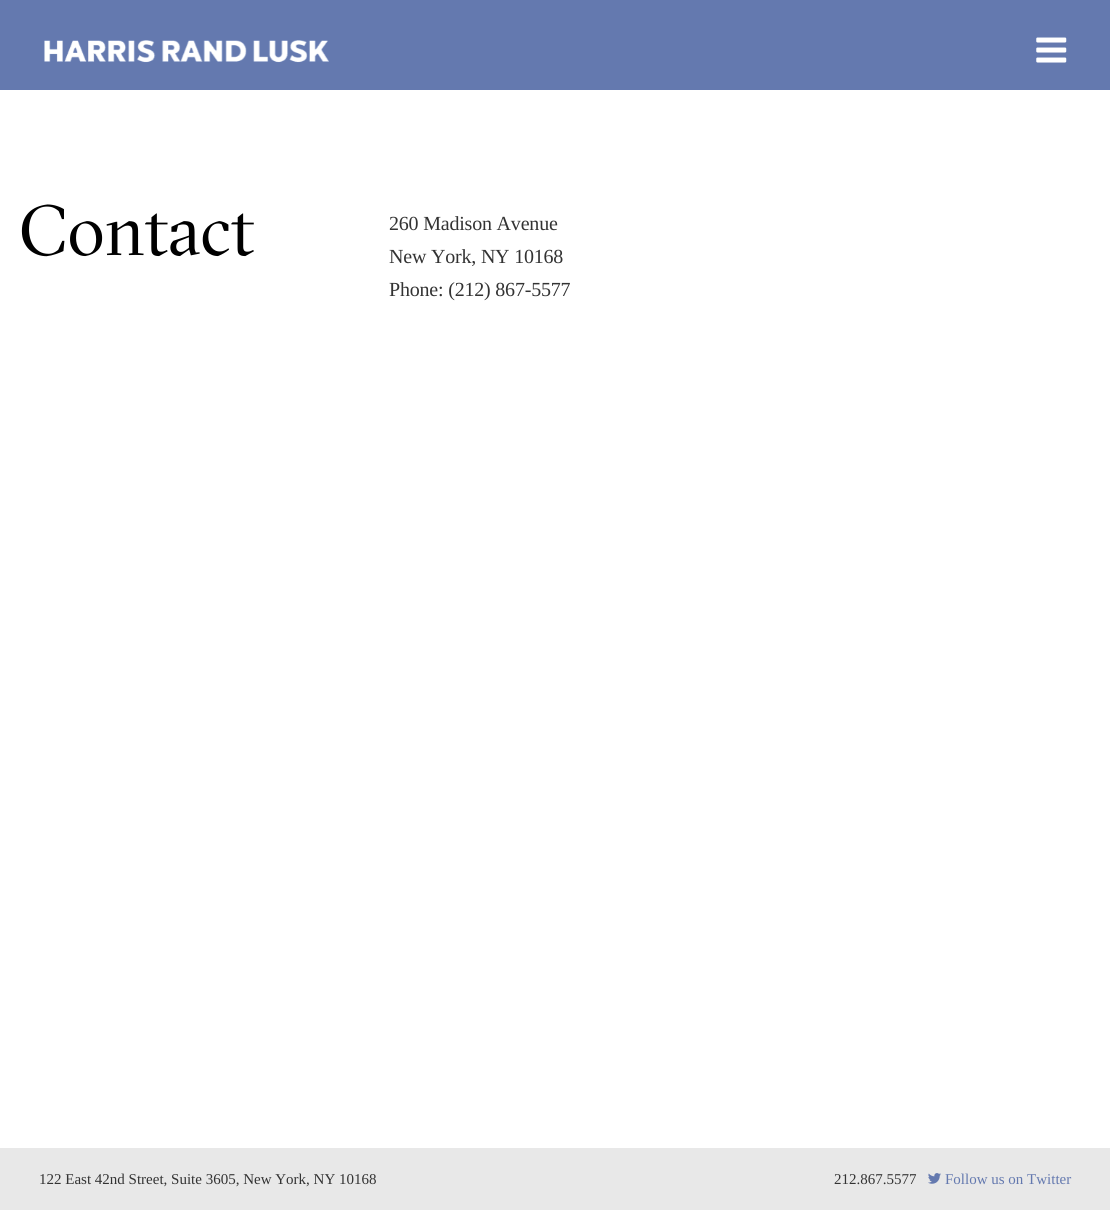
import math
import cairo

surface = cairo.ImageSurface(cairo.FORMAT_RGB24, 1110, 1210)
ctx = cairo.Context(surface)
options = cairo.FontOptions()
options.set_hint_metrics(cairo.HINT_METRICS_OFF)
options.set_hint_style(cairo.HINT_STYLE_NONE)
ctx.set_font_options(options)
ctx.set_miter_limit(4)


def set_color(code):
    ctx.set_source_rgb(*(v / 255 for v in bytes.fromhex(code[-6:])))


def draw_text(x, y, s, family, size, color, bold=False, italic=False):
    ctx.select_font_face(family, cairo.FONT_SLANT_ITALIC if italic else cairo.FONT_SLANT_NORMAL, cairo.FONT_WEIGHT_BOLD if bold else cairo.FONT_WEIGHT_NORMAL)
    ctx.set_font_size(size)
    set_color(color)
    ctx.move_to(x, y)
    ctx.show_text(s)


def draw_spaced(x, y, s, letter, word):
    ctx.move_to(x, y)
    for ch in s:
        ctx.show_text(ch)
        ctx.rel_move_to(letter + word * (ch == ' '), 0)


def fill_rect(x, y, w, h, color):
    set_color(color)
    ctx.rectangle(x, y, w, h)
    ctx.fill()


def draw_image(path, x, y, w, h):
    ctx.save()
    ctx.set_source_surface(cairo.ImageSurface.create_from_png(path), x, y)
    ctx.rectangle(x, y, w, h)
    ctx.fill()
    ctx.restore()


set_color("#ffffff")
ctx.paint()
fill_rect(0, 0, 1110, 90, "#6479af")
draw_image("assets/img1.png", 44, 40, 285, 23)
draw_image("assets/img2.png", 1036, 37, 31, 26)
draw_text(19, 255, "Contact", "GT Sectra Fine", 70.5, "#000000")
ctx.select_font_face("Liberation Serif")
ctx.set_font_size(20)
set_color("#333333")
draw_spaced(389, 230, "260 Madison Avenue", -0.2, 0)
draw_spaced(389, 263, "New York, NY 10168", -0.2, 0)
draw_spaced(389, 296, "Phone: (212) 867-5577", -0.2, 0)
fill_rect(0, 1148, 1110, 62, "#e8e8e8")
draw_text(39, 1184, "122 East 42nd Street, Suite 3605, New York, NY 10168", "Liberation Serif", 15, "#333333")
draw_text(834, 1184, "212.867.5577", "Liberation Serif", 15, "#333333")
draw_image("assets/img3.png", 928, 1173, 13, 11)
draw_text(945, 1184, "Follow us on Twitter", "Liberation Serif", 15, "#6479af")
surface.write_to_png("output.png")
